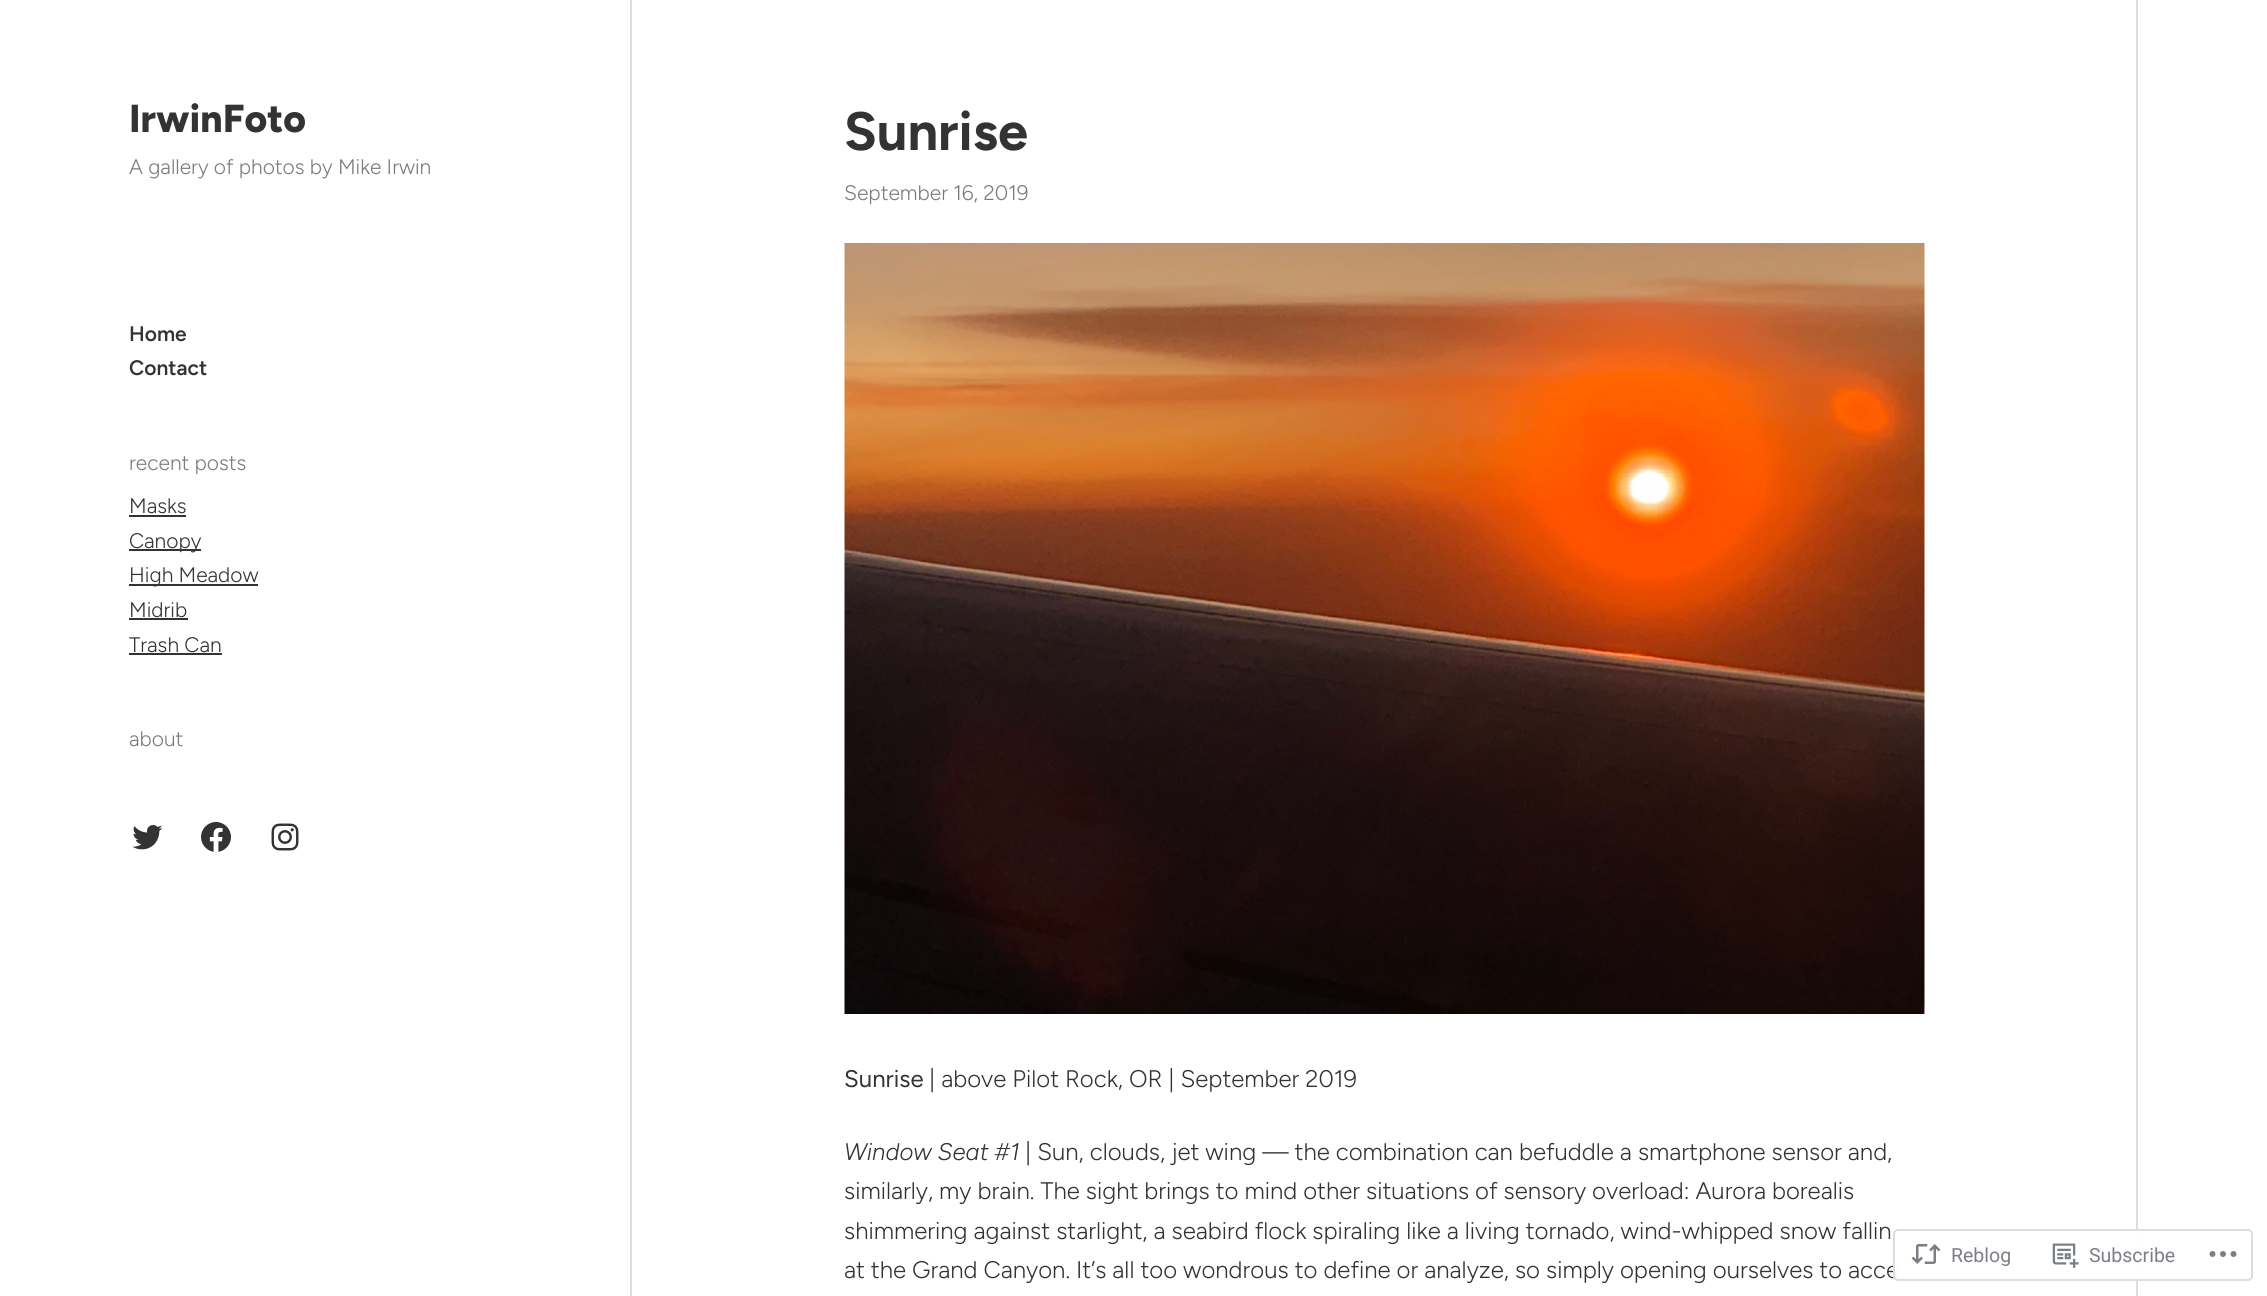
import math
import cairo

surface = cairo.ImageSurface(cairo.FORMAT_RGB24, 2267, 1296)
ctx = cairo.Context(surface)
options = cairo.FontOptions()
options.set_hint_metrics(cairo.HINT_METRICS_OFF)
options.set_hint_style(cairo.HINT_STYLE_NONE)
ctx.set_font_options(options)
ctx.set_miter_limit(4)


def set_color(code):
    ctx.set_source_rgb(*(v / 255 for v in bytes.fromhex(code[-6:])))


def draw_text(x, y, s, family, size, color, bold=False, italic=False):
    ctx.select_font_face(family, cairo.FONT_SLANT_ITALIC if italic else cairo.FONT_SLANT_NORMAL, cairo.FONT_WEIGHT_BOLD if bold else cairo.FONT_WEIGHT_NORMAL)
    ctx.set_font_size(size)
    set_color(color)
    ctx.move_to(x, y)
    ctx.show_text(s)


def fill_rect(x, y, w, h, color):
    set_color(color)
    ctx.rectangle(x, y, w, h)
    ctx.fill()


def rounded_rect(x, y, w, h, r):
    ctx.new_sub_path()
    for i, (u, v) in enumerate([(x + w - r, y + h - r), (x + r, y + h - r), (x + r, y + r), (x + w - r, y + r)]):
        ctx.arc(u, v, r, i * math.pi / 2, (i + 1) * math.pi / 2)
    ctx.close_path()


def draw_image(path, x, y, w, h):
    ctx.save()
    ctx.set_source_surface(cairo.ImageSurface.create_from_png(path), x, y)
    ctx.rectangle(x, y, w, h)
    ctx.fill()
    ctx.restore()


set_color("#ffffff")
ctx.paint()
draw_text(129, 132, "IrwinFoto", "Figtree ExtraBold", 39, "#333333")
draw_text(129, 174, "A gallery of photos by Mike Irwin", "Figtree Light", 21, "#7b7b7b")
draw_text(129, 341, "Home", "Figtree SemiBold", 21, "#333333")
draw_text(129, 375, "Contact", "Figtree SemiBold", 21, "#333333")
draw_text(129, 470, "recent posts", "Figtree Light", 21, "#7b7b7b")
draw_text(129, 513, "Masks", "Figtree Light", 21, "#333333")
fill_rect(129, 515, 57, 2, "#333333")
fill_rect(129, 549, 72, 2, "#333333")
draw_text(129, 548, "Canopy", "Figtree Light", 21, "#333333")
fill_rect(129, 584, 129, 2, "#333333")
draw_text(129, 582, "High Meadow", "Figtree Light", 21, "#333333")
draw_text(129, 617, "Midrib", "Figtree Light", 21, "#333333")
fill_rect(129, 618, 59, 2, "#333333")
draw_text(129, 652, "Trash Can", "Figtree Light", 21, "#333333")
fill_rect(129, 653, 93, 2, "#333333")
draw_text(129, 746, "about", "Figtree Light", 21, "#7b7b7b")
draw_image("assets/img1.png", 132, 825, 31, 25)
draw_image("assets/img2.png", 201, 822, 30, 30)
draw_image("assets/img3.png", 271, 823, 28, 28)
fill_rect(2136, 0, 2, 1296, "#dddddd")
fill_rect(630, 0, 2, 1296, "#dddddd")
draw_text(844, 150, "Sunrise", "Figtree", 54, "#333333", bold=True)
draw_text(844, 200, "September 16, 2019", "Figtree Light", 21, "#7b7b7b")
draw_image("assets/img4.png", 844, 243, 1081, 771)
draw_text(844, 1087, "Sunrise", "Figtree", 24, "#333333")
draw_text(929, 1087, "| above Pilot Rock, OR | September 2019", "Figtree Light", 24, "#333333")
draw_text(844, 1160, "Window Seat #1", "Figtree Light", 24, "#333333", italic=True)
draw_text(1025, 1160, "| Sun, clouds, jet wing — the combination can befuddle a smartphone sensor and,", "Figtree Light", 24, "#333333")
draw_text(844, 1199, "similarly, my brain. The sight brings to mind other situations of sensory overload: Aurora borealis", "Figtree Light", 24, "#333333")
draw_text(844, 1239, "shimmering against starlight, a seabird flock spiraling like a living tornado, wind-whipped snow fallin", "Figtree Light", 24, "#333333")
draw_text(844, 1278, "at the Grand Canyon. It’s all too wondrous to define or analyze, so simply opening ourselves to acce", "Figtree Light", 24, "#333333")
ctx.set_source_rgba(1, 1, 1, 0.98)
rounded_rect(1893, 1229, 360, 52, 5)
ctx.fill()
rounded_rect(1894, 1230, 358, 50, 4)
ctx.set_source_rgba(0.863, 0.863, 0.871, 0.98)
ctx.stroke()
draw_image("assets/img5.png", 1911, 1244, 30, 20)
draw_text(1951, 1262, "Reblog", "Roboto", 19.5, "#7b7f85")
draw_image("assets/img6.png", 2052, 1243, 27, 25)
draw_text(2089, 1262, "Subscribe", "Roboto", 19.5, "#7b7f85")
draw_image("assets/img7.png", 2209, 1251, 28, 6)
surface.write_to_png("output.png")
